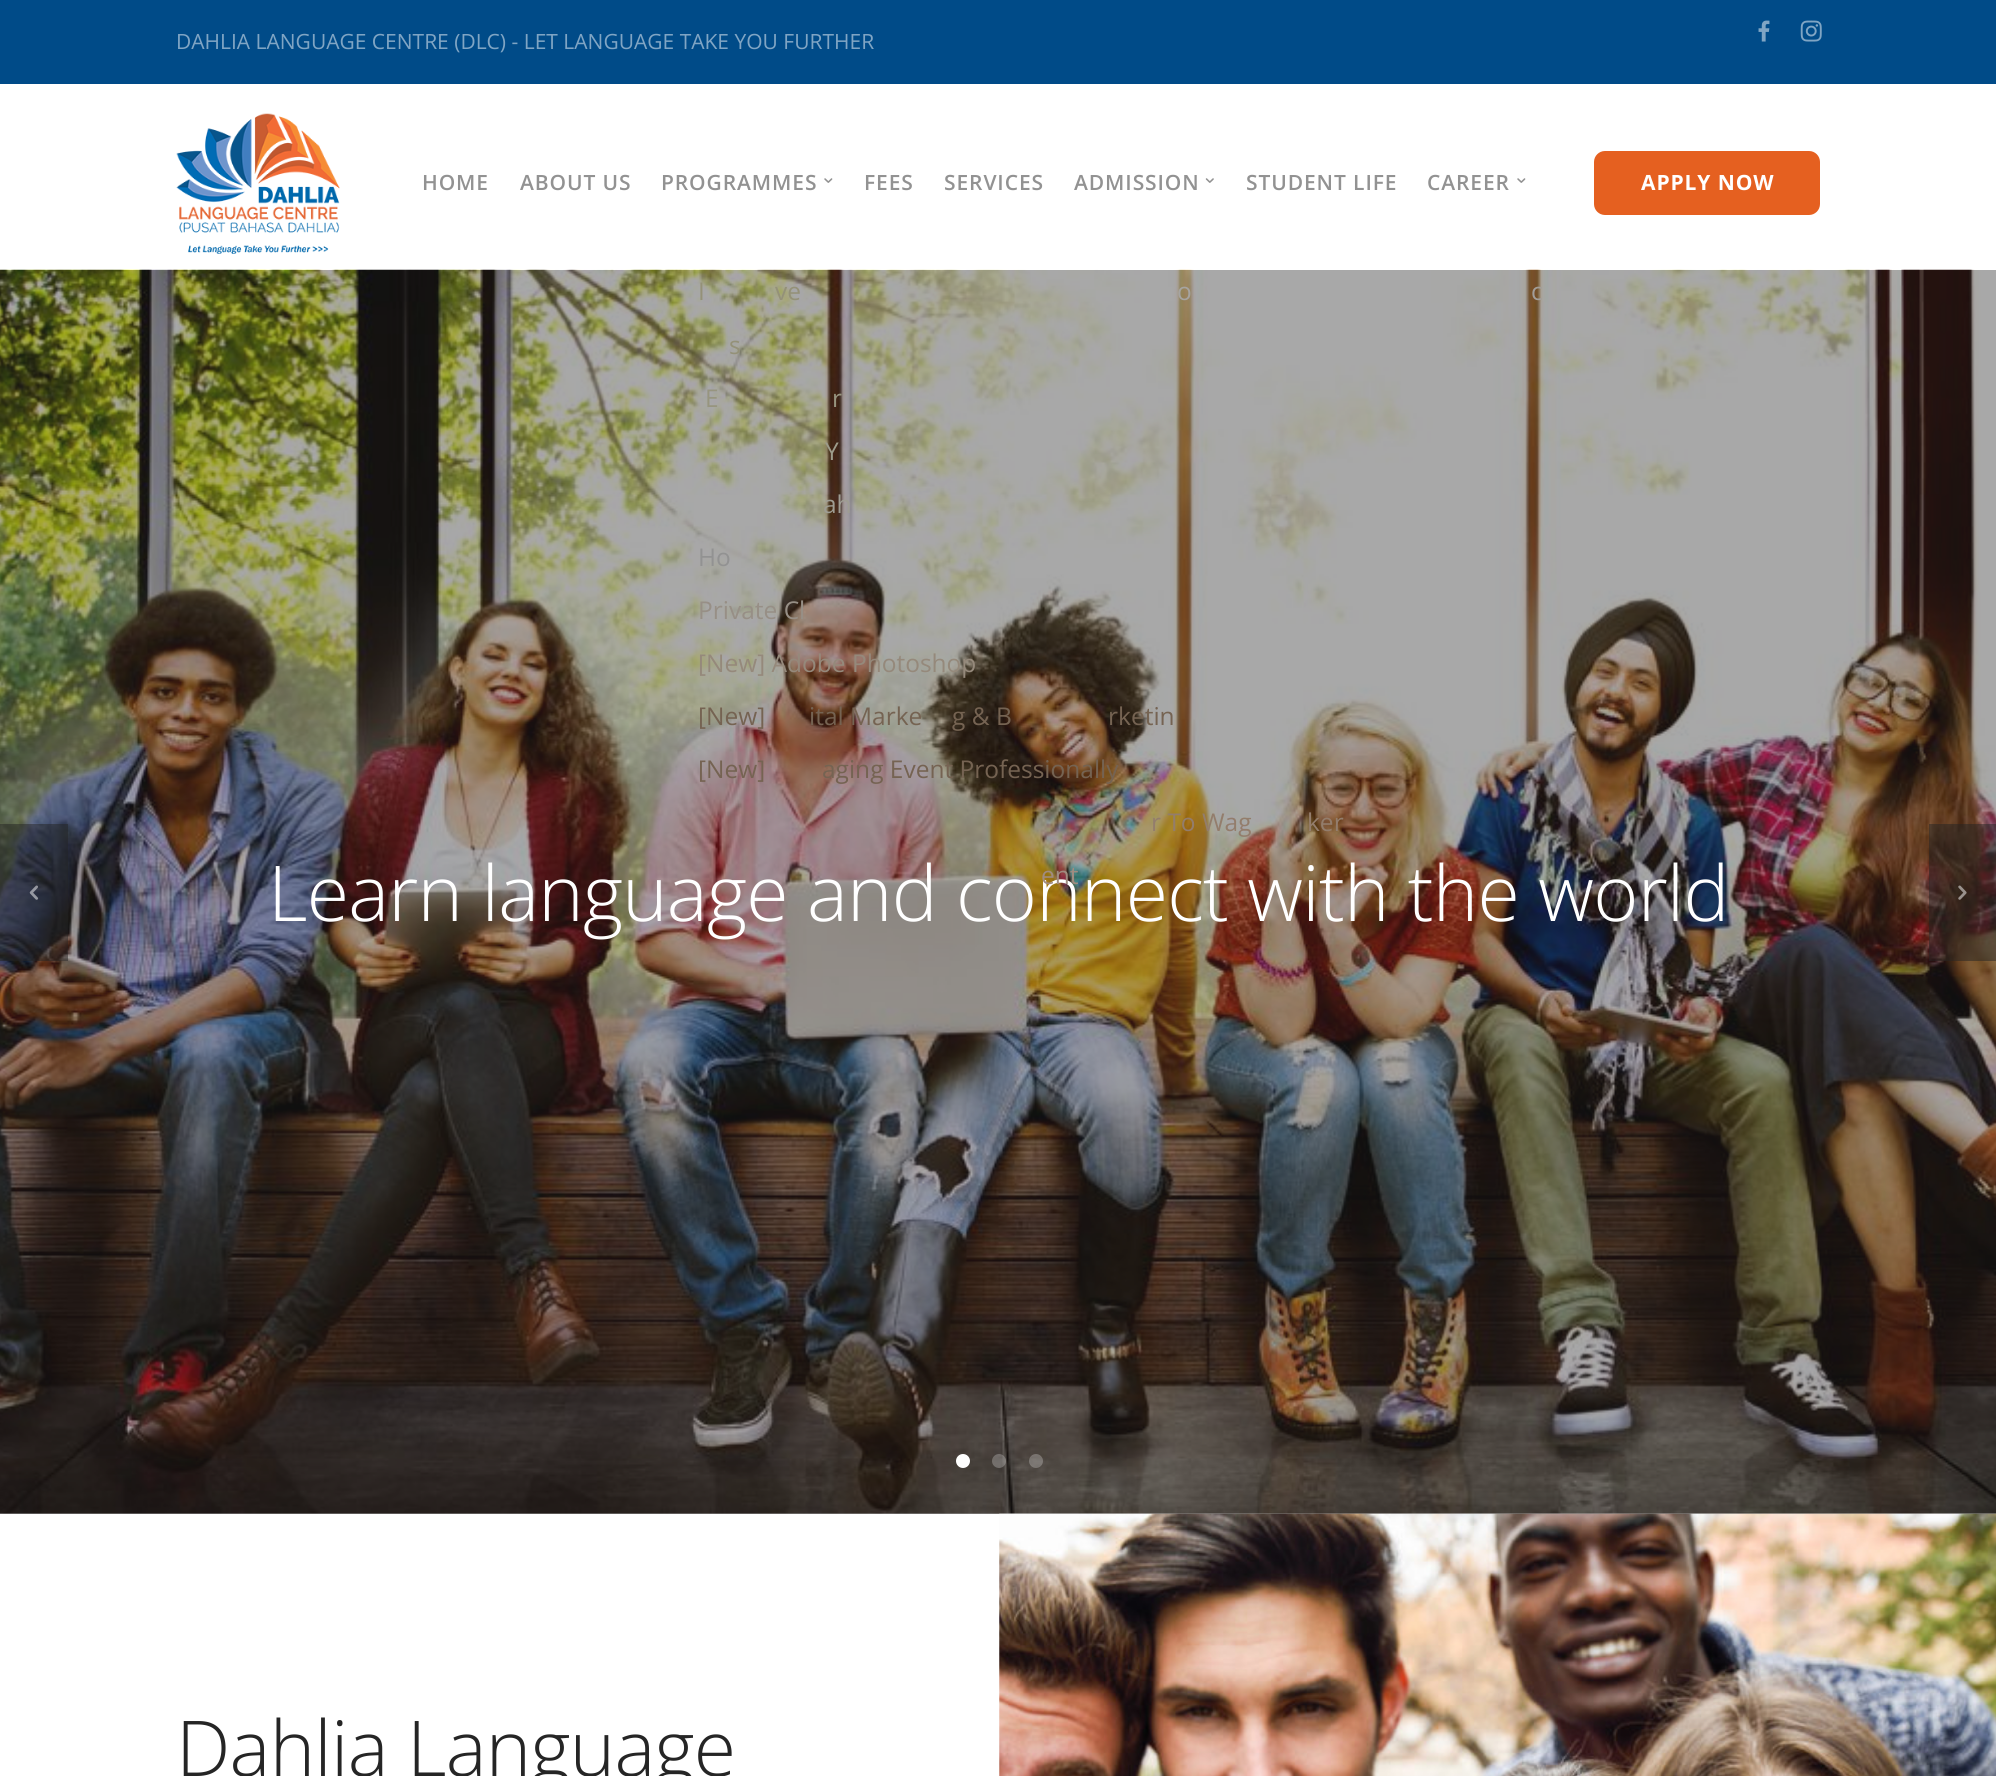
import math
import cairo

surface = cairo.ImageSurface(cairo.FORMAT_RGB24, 1996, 1776)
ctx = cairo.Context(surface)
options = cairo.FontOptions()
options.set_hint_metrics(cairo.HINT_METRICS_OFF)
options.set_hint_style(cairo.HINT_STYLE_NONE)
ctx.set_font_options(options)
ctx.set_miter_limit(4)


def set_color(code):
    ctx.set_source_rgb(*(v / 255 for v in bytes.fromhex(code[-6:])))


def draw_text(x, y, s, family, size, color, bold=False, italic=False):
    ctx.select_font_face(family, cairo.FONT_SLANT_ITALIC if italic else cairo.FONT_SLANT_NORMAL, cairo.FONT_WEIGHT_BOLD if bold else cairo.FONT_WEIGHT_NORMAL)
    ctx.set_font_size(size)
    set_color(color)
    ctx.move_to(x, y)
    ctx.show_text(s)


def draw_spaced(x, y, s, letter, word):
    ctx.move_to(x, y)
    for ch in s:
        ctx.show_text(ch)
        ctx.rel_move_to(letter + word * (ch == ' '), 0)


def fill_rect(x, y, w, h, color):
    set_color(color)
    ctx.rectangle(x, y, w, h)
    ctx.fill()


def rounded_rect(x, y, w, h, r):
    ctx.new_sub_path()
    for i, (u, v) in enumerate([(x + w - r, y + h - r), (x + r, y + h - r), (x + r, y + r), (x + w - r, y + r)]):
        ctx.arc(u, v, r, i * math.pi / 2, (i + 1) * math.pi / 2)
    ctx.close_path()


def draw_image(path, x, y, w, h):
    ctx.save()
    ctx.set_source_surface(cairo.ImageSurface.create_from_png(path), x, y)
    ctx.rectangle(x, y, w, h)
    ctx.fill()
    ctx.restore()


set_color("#ffffff")
ctx.paint()
fill_rect(0, 1513, 1996, 1, "#a8a8a8")
fill_rect(0, 0, 1996, 84, "#004b88")
draw_text(176, 49, "DAHLIA LANGUAGE CENTRE (DLC) - LET LANGUAGE TAKE YOU FURTHER", "Open Sans", 21, "#80a5c4")
draw_image("assets/img1.png", 1758, 20, 12, 22)
draw_image("assets/img2.png", 1800, 20, 22, 22)
draw_image("assets/img3.png", 176, 113, 164, 141)
ctx.select_font_face("Open Sans SemiBold")
set_color("#929292")
draw_spaced(422, 190, "HOME", 0.9, 0)
draw_spaced(520, 190, "ABOUT US", 0.9, 0)
draw_spaced(661, 190, "PROGRAMMES", 0.9, 0)
draw_image("assets/img4.png", 824, 178, 9, 5)
draw_image("assets/img7.png", 0, 269, 1996, 1245)
draw_text(698, 300, "I", "Open Sans", 24.5, "#949178")
draw_text(775, 300, "ve", "Open Sans", 24.5, "#949178")
draw_text(729, 354, "s", "Open Sans", 24.5, "#949178")
draw_text(705, 407, "E", "Open Sans", 24.5, "#97957f")
draw_text(832, 407, "r", "Open Sans", 24.5, "#97957f")
draw_text(825, 460, "Y", "Open Sans", 24.5, "#9d9c8b")
draw_text(823, 513, "ah", "Open Sans", 24.5, "#9f9d93")
draw_text(698, 566, "Ho", "Open Sans", 24.5, "#929292")
draw_text(698, 619, "Private Cl", "Open Sans", 24.5, "#978f86")
draw_text(698, 672, "[New] Adobe Photoshop", "Open Sans", 24.5, "#95897b")
draw_text(698, 725, "[New]", "Open Sans", 24.5, "#756352")
draw_text(809, 725, "ital Marke", "Open Sans", 24.5, "#756352")
draw_text(952, 725, "g & B", "Open Sans", 24.5, "#756352")
draw_text(1108, 725, "rketin", "Open Sans", 24.5, "#756352")
draw_text(698, 778, "[New]", "Open Sans", 24.5, "#756352")
draw_text(822, 778, "aging Event Professionally", "Open Sans", 24.5, "#756352")
draw_text(1151, 831, "r To Wag", "Open Sans", 24.5, "#937d6c")
draw_text(1307, 831, "ker", "Open Sans", 24.5, "#937d6c")
ctx.select_font_face("Open Sans Light")
ctx.set_font_size(77)
set_color("#ffffff")
draw_spaced(268, 921, "Learn language and connect with the world", -0.75, 0)
draw_text(1041, 884, "ent", "Open Sans", 24.5, "#a08c80")
ctx.select_font_face("Open Sans SemiBold")
ctx.set_font_size(21)
set_color("#929292")
draw_spaced(864, 190, "FEES", 0.9, 0)
draw_spaced(944, 190, "SERVICES", 0.9, 0)
draw_spaced(1074, 190, "ADMISSION", 0.9, 0)
draw_image("assets/img5.png", 1205, 178, 9, 5)
draw_text(1177, 300, "o", "Open Sans", 24.5, "#a6a4a1")
ctx.select_font_face("Open Sans SemiBold")
ctx.set_font_size(21)
set_color("#929292")
draw_spaced(1246, 190, "STUDENT LIFE", 0.9, 0)
draw_spaced(1427, 190, "CAREER", 0.9, 0)
draw_image("assets/img4.png", 1517, 178, 9, 5)
draw_text(1531, 300, "c", "Open Sans", 24.5, "#a29e99")
set_color("#e56020")
rounded_rect(1595, 152, 224, 62, 10)
ctx.fill_preserve()
ctx.stroke()
ctx.select_font_face("Open Sans", cairo.FONT_SLANT_NORMAL, cairo.FONT_WEIGHT_BOLD)
ctx.set_font_size(21)
set_color("#ffffff")
draw_spaced(1641, 190, "APPLY NOW", 0.9, 0)
ctx.set_source_rgba(0.145, 0.145, 0.145, 0.5)
ctx.rectangle(0, 824, 68, 137)
ctx.fill()
draw_image("assets/img6.png", 29, 885, 10, 15)
ctx.rectangle(1929, 824, 67, 137)
ctx.fill()
draw_image("assets/img8.png", 1958, 885, 9, 15)
set_color("#ffffff")
ctx.arc(963, 1461, 7, 0, 2 * math.pi)
ctx.fill()
ctx.set_source_rgba(1, 1, 1, 0.25)
ctx.arc(999, 1461, 7, 0, 2 * math.pi)
ctx.fill()
ctx.arc(1036, 1461, 7, 0, 2 * math.pi)
ctx.fill()
ctx.select_font_face("Open Sans Light")
ctx.set_font_size(77)
set_color("#252525")
draw_spaced(176, 1776, "Dahlia Language", -0.75, 0)
draw_image("assets/img9.png", 999, 1513, 997, 263)
surface.write_to_png("output.png")
